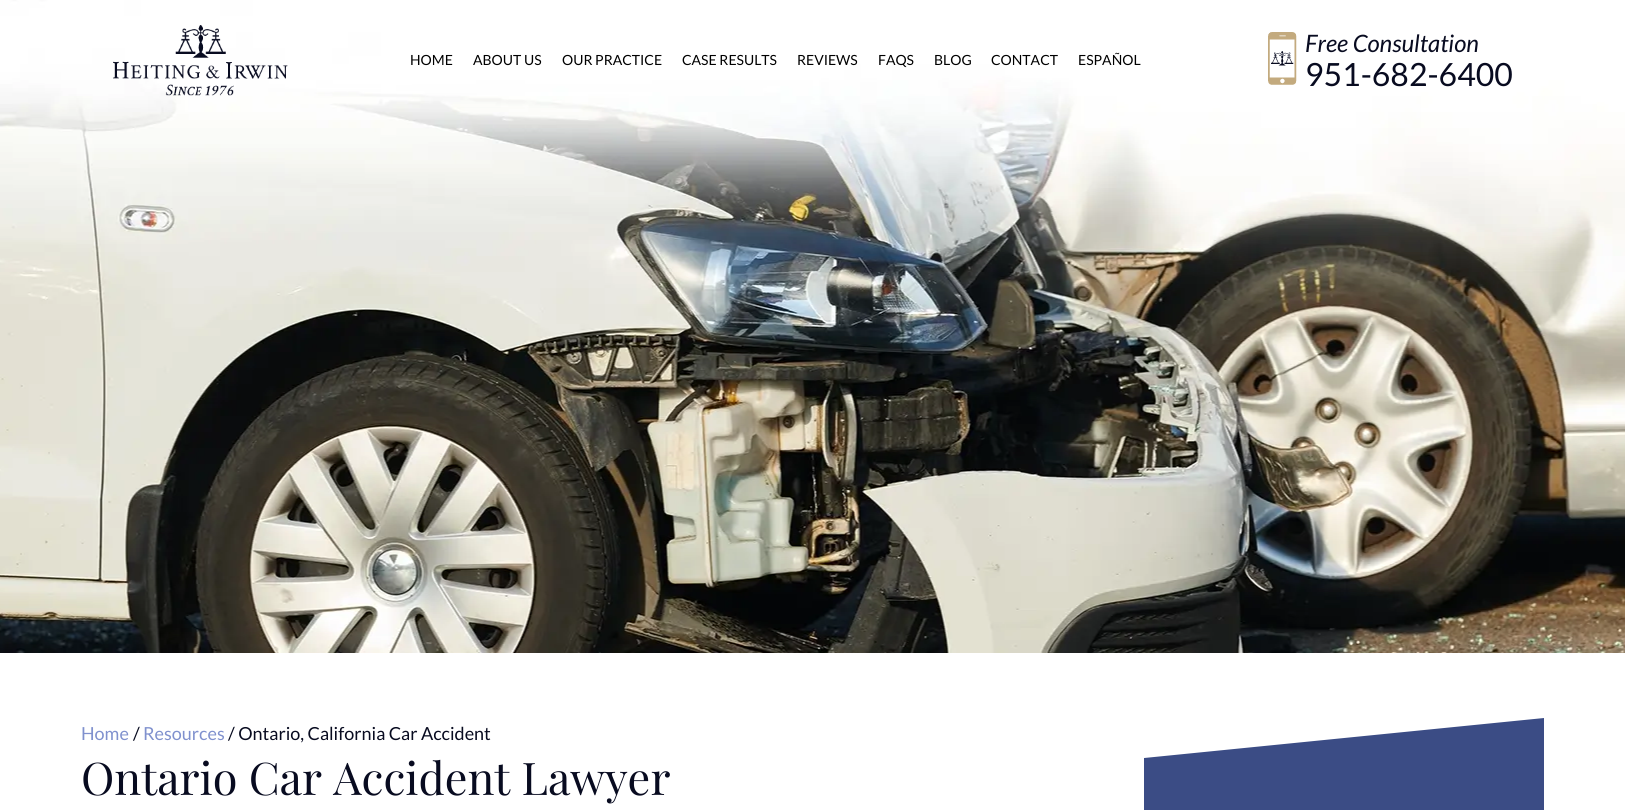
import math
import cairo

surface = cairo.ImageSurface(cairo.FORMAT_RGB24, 1625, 810)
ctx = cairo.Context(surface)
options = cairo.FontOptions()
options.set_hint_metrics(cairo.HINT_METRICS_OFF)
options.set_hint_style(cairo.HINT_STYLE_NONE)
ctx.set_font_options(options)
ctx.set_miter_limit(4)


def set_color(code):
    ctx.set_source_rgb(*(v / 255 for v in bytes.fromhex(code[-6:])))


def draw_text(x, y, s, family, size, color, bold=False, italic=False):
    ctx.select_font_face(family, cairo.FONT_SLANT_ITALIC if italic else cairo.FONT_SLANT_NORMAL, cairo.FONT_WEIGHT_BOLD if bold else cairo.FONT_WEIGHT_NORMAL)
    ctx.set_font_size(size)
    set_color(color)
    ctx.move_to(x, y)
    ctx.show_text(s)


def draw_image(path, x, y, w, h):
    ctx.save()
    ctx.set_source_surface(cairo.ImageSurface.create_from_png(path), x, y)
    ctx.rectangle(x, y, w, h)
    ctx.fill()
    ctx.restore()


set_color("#ffffff")
ctx.paint()
draw_image("assets/img1.png", 0, 0, 1625, 653)
draw_image("assets/img2.png", 113, 25, 175, 71)
draw_text(410, 65, "HOME", "Lato", 14, "#000000")
draw_text(473, 65, "ABOUT US", "Lato", 14, "#000000")
draw_text(562, 65, "OUR PRACTICE", "Lato", 14, "#000000")
draw_text(682, 65, "CASE RESULTS", "Lato", 14, "#000000")
draw_text(797, 65, "REVIEWS", "Lato", 14, "#000000")
draw_text(878, 65, "FAQS", "Lato", 14, "#000000")
draw_text(934, 65, "BLOG", "Lato", 14, "#000000")
draw_text(991, 65, "CONTACT", "Lato", 14, "#000000")
draw_text(1078, 65, "ESPAÑOL", "Lato", 14, "#000000")
draw_image("assets/img3.png", 1268, 32, 29, 53)
draw_text(1305, 52, "Free Consultation", "Lato", 24, "#080b20", italic=True)
draw_text(1305, 86, "951-682-6400", "Lato", 32, "#080b20")
draw_text(81, 740, "Home", "Lato", 18, "#8091ce")
draw_text(133, 740, "/", "Lato", 18, "#080b20")
draw_text(143, 740, "Resources", "Lato", 18, "#8091ce")
draw_text(228, 740, "/ Ontario, California Car Accident", "Lato", 18, "#080b20")
draw_text(81, 795, "Ontario Car Accident Lawyer", "Playfair Display", 45, "#080b20")
set_color("#3b4c85")
ctx.new_path()
ctx.move_to(1144, 758)
ctx.line_to(1544, 718)
ctx.line_to(1544, 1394)
ctx.line_to(1144, 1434)
ctx.close_path()
ctx.fill()
surface.write_to_png("output.png")
